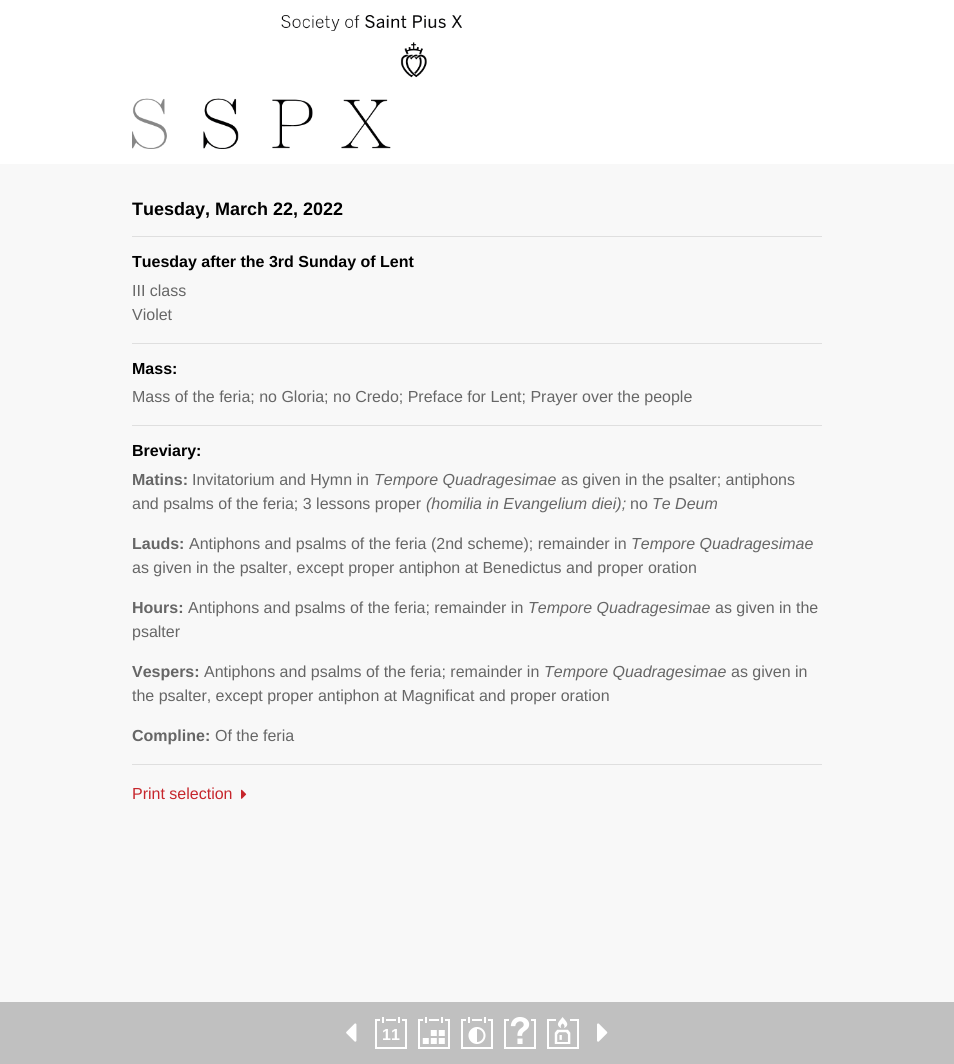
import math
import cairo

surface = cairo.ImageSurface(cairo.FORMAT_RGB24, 954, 1064)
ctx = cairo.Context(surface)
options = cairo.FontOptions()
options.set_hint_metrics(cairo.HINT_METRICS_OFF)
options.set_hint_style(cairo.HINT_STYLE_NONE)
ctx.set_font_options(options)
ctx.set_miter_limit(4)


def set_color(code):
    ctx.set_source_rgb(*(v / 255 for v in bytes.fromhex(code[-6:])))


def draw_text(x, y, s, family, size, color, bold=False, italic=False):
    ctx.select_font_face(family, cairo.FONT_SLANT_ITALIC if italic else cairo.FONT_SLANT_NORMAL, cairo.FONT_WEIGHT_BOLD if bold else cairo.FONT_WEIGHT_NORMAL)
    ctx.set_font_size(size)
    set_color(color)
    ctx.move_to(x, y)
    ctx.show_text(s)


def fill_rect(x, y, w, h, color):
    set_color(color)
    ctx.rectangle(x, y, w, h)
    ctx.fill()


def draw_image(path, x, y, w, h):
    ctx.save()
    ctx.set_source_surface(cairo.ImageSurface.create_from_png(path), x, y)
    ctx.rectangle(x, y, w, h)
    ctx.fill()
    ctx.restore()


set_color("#f8f8f8")
ctx.paint()
fill_rect(0, 0, 954, 164, "#ffffff")
draw_image("assets/img1.png", 132, 15, 330, 134)
draw_text(132, 215, "Tuesday, March 22, 2022", "Liberation Sans", 18, "#000000", bold=True)
fill_rect(132, 236, 690, 1, "#dfdfdf")
draw_text(132, 267, "Tuesday after the 3rd Sunday of Lent", "Liberation Sans", 16, "#000000", bold=True)
draw_text(132, 296, "III class", "Liberation Sans", 16, "#666666")
draw_text(132, 320, "Violet", "Liberation Sans", 16, "#666666")
fill_rect(132, 343, 690, 1, "#dfdfdf")
draw_text(132, 374, "Mass:", "Liberation Sans", 16, "#000000", bold=True)
draw_text(132, 402, "Mass of the feria; no Gloria; no Credo; Preface for Lent; Prayer over the people", "Liberation Sans", 16, "#666666")
fill_rect(132, 425, 690, 1, "#dfdfdf")
draw_text(132, 456, "Breviary:", "Liberation Sans", 16, "#000000", bold=True)
draw_text(132, 485, "Matins:", "Liberation Sans", 16, "#666666", bold=True)
draw_text(192, 485, "Invitatorium and Hymn in", "Liberation Sans", 16, "#666666")
draw_text(374, 485, "Tempore Quadragesimae", "Liberation Sans", 16, "#666666", italic=True)
draw_text(561, 485, "as given in the psalter; antiphons", "Liberation Sans", 16, "#666666")
draw_text(132, 509, "and psalms of the feria; 3 lessons proper", "Liberation Sans", 16, "#666666")
draw_text(426, 509, "(homilia in Evangelium diei);", "Liberation Sans", 16, "#666666", italic=True)
draw_text(630, 509, "no", "Liberation Sans", 16, "#666666")
draw_text(652, 509, "Te Deum", "Liberation Sans", 16, "#666666", italic=True)
draw_text(132, 549, "Lauds:", "Liberation Sans", 16, "#666666", bold=True)
draw_text(189, 549, "Antiphons and psalms of the feria (2nd scheme); remainder in", "Liberation Sans", 16, "#666666")
draw_text(631, 549, "Tempore Quadragesimae", "Liberation Sans", 16, "#666666", italic=True)
draw_text(132, 573, "as given in the psalter, except proper antiphon at Benedictus and proper oration", "Liberation Sans", 16, "#666666")
draw_text(132, 613, "Hours:", "Liberation Sans", 16, "#666666", bold=True)
draw_text(188, 613, "Antiphons and psalms of the feria; remainder in", "Liberation Sans", 16, "#666666")
draw_text(528, 613, "Tempore Quadragesimae", "Liberation Sans", 16, "#666666", italic=True)
draw_text(715, 613, "as given in the", "Liberation Sans", 16, "#666666")
draw_text(132, 637, "psalter", "Liberation Sans", 16, "#666666")
draw_text(132, 677, "Vespers:", "Liberation Sans", 16, "#666666", bold=True)
draw_text(204, 677, "Antiphons and psalms of the feria; remainder in", "Liberation Sans", 16, "#666666")
draw_text(544, 677, "Tempore Quadragesimae", "Liberation Sans", 16, "#666666", italic=True)
draw_text(731, 677, "as given in", "Liberation Sans", 16, "#666666")
draw_text(132, 701, "the psalter, except proper antiphon at Magnificat and proper oration", "Liberation Sans", 16, "#666666")
draw_text(132, 741, "Compline:", "Liberation Sans", 16, "#666666", bold=True)
draw_text(215, 741, "Of the feria", "Liberation Sans", 16, "#666666")
fill_rect(132, 764, 690, 1, "#dfdfdf")
draw_text(132, 799, "Print selection", "Liberation Sans", 16, "#c6262c")
draw_image("assets/img2.png", 241, 789, 6, 10)
fill_rect(0, 1002, 954, 62, "#c0c0c0")
draw_image("assets/img3.png", 346, 1023, 11, 19)
draw_image("assets/img4.png", 375, 1017, 32, 32)
draw_text(382, 1040, "11", "Liberation Sans", 16, "#ffffff", bold=True)
draw_image("assets/img5.png", 418, 1017, 32, 32)
draw_image("assets/img6.png", 461, 1017, 32, 32)
draw_image("assets/img7.png", 504, 1017, 32, 32)
draw_image("assets/img8.png", 547, 1017, 32, 32)
draw_image("assets/img9.png", 597, 1023, 11, 19)
surface.write_to_png("output.png")
